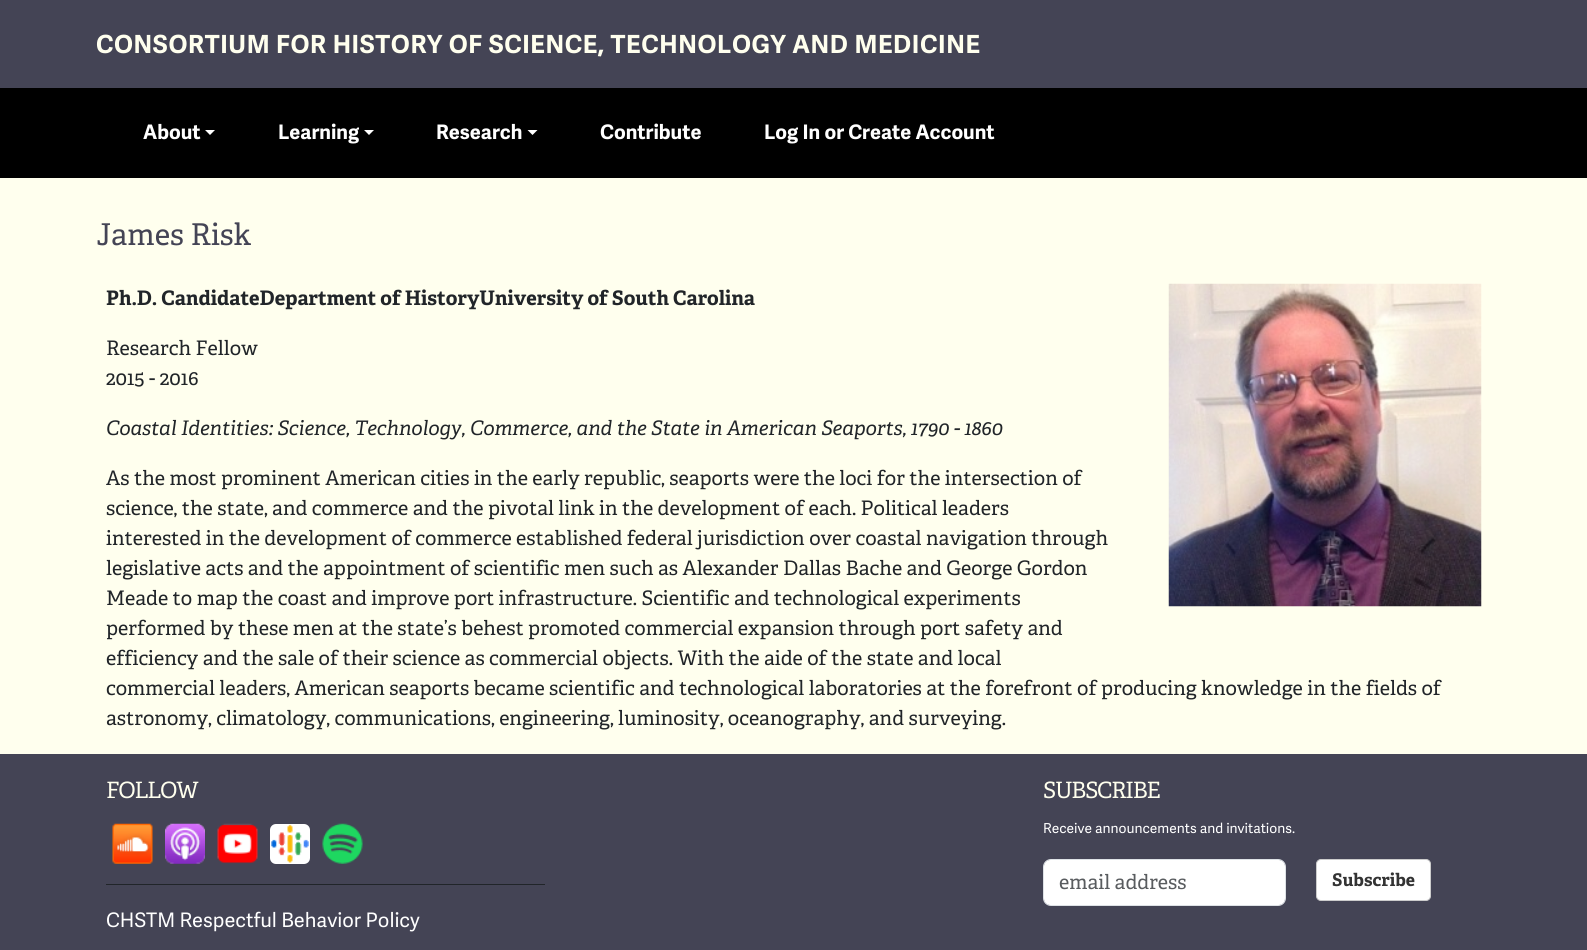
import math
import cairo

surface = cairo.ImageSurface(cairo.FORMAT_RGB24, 1587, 950)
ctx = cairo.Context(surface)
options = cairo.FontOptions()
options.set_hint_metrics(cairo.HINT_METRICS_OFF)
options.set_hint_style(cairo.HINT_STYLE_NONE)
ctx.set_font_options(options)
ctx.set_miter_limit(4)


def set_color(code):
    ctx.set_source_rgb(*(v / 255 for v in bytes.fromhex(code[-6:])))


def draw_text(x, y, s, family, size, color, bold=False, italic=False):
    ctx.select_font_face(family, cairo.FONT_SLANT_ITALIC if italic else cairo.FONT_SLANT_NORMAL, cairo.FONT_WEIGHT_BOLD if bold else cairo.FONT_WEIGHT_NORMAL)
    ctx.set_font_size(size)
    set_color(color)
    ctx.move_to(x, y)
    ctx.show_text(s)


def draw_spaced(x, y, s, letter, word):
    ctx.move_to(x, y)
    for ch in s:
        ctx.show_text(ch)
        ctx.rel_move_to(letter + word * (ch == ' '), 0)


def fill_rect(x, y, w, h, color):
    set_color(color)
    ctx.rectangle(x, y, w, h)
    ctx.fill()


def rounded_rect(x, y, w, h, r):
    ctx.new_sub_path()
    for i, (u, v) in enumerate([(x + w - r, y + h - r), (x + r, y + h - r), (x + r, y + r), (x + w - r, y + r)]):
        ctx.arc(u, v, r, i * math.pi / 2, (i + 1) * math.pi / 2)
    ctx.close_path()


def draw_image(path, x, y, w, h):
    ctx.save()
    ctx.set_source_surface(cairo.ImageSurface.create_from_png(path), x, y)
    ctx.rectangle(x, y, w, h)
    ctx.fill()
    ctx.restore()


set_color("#ffffee")
ctx.paint()
fill_rect(0, 88, 1587, 90, "#000000")
fill_rect(0, 0, 1587, 88, "#444455")
ctx.select_font_face("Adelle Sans", cairo.FONT_SLANT_NORMAL, cairo.FONT_WEIGHT_BOLD)
ctx.set_font_size(25)
set_color("#ffffee")
draw_spaced(96, 53, "CONSORTIUM FOR HISTORY OF SCIENCE, TECHNOLOGY AND MEDICINE", 0.62, 0)
draw_text(143, 139, "About", "Adelle Sans", 20, "#ffffff", bold=True)
ctx.new_path()
ctx.move_to(205, 130)
ctx.line_to(215, 130)
ctx.line_to(210, 135)
ctx.close_path()
ctx.fill()
draw_text(278, 139, "Learning", "Adelle Sans", 20, "#ffffff", bold=True)
ctx.new_path()
ctx.move_to(364, 130)
ctx.line_to(374, 130)
ctx.line_to(369, 135)
ctx.close_path()
ctx.fill()
draw_text(436, 139, "Research", "Adelle Sans", 20, "#ffffff", bold=True)
ctx.new_path()
ctx.move_to(527.5, 130)
ctx.line_to(537.5, 130)
ctx.line_to(532.5, 135)
ctx.close_path()
ctx.fill()
draw_text(600, 139, "Contribute", "Adelle Sans", 20, "#ffffff", bold=True)
draw_text(764, 139, "Log In or Create Account", "Adelle Sans", 20, "#ffffff", bold=True)
draw_text(96, 245, "James Risk", "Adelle", 30, "#444455")
draw_text(106, 305, "Ph.D. CandidateDepartment of HistoryUniversity of South Carolina", "Adelle", 20, "#212529", bold=True)
draw_image("assets/img1.png", 1168, 283, 314, 324)
draw_text(106, 355, "Research Fellow", "Adelle", 20, "#212529")
draw_text(106, 385, "2015 - 2016", "Adelle", 20, "#212529")
draw_text(106, 435, "Coastal Identities: Science, Technology, Commerce, and the State in American Seaports, 1790 - 1860", "Adelle", 20, "#212529", italic=True)
draw_text(106, 485, "As the most prominent American cities in the early republic, seaports were the loci for the intersection of", "Adelle", 20, "#212529")
draw_text(106, 515, "science, the state, and commerce and the pivotal link in the development of each. Political leaders", "Adelle", 20, "#212529")
draw_text(106, 545, "interested in the development of commerce established federal jurisdiction over coastal navigation through", "Adelle", 20, "#212529")
draw_text(106, 575, "legislative acts and the appointment of scientific men such as Alexander Dallas Bache and George Gordon", "Adelle", 20, "#212529")
draw_text(106, 605, "Meade to map the coast and improve port infrastructure. Scientific and technological experiments", "Adelle", 20, "#212529")
draw_text(106, 635, "performed by these men at the state’s behest promoted commercial expansion through port safety and", "Adelle", 20, "#212529")
draw_text(106, 665, "efficiency and the sale of their science as commercial objects. With the aide of the state and local", "Adelle", 20, "#212529")
draw_text(106, 695, "commercial leaders, American seaports became scientific and technological laboratories at the forefront of producing knowledge in the fields of", "Adelle", 20, "#212529")
draw_text(106, 725, "astronomy, climatology, communications, engineering, luminosity, oceanography, and surveying.", "Adelle", 20, "#212529")
fill_rect(0, 754, 1587, 196, "#444455")
ctx.set_font_size(22.5)
set_color("#ffffee")
draw_spaced(106, 798, "FOLLOW", -1.25, 0)
fill_rect(106, 884, 439, 1, "#212529")
draw_image("assets/img2.png", 112, 823, 41, 41)
draw_image("assets/img3.png", 165, 823, 40, 41)
draw_image("assets/img4.png", 217, 823, 41, 41)
set_color("#ffffff")
rounded_rect(270, 824, 40, 40, 6)
ctx.fill()
draw_image("assets/img5.png", 271, 824, 38, 39)
draw_image("assets/img6.png", 322, 823, 41, 41)
draw_text(106, 927, "CHSTM Respectful Behavior Policy", "Adelle Sans", 20, "#ffffff")
ctx.select_font_face("Adelle")
ctx.set_font_size(22.5)
set_color("#ffffee")
draw_spaced(1043, 798, "SUBSCRIBE", -1.25, 0)
draw_text(1043, 833, "Receive announcements and invitations.", "Adelle Sans", 13.75, "#ffffff")
rounded_rect(1044, 860, 241, 45, 6)
ctx.fill()
rounded_rect(1043.5, 859.5, 242, 46, 7.5)
set_color("#dee2e6")
ctx.set_line_width(1)
ctx.stroke()
draw_text(1059, 889, "email address", "Adelle", 20, "#595c5f")
set_color("#ffffff")
rounded_rect(1316.5, 859.5, 114, 41, 4.5)
ctx.fill_preserve()
set_color("#cccccc")
ctx.stroke()
draw_text(1332, 886, "Subscribe", "Adelle", 17.5, "#333333", bold=True)
surface.write_to_png("output.png")
